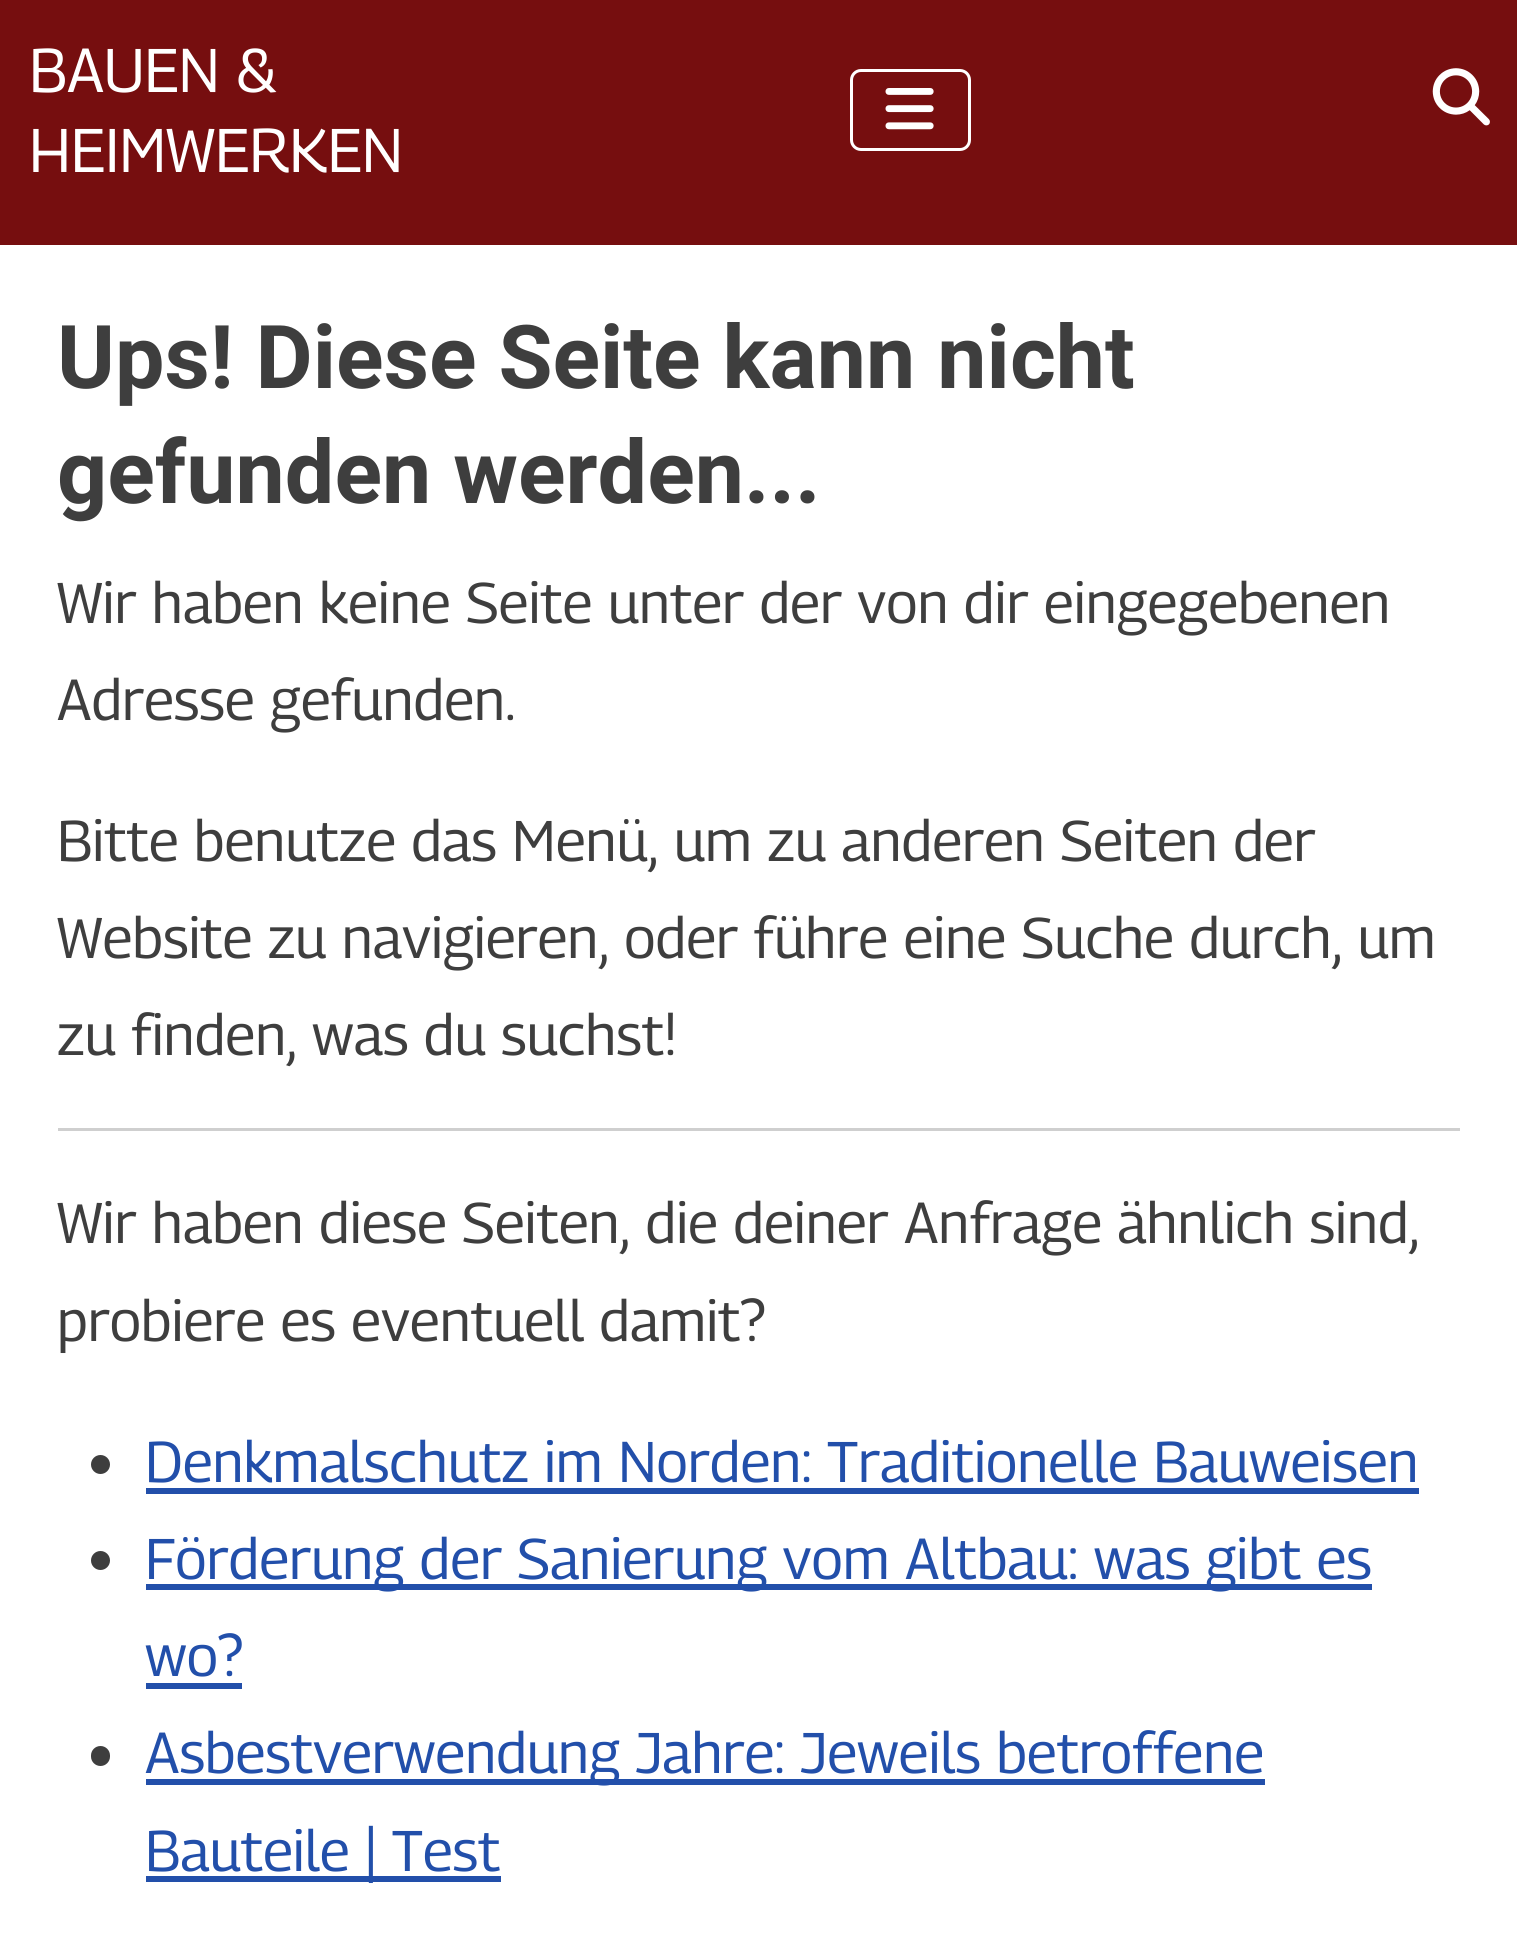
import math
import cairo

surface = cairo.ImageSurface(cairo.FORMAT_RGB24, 1517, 1938)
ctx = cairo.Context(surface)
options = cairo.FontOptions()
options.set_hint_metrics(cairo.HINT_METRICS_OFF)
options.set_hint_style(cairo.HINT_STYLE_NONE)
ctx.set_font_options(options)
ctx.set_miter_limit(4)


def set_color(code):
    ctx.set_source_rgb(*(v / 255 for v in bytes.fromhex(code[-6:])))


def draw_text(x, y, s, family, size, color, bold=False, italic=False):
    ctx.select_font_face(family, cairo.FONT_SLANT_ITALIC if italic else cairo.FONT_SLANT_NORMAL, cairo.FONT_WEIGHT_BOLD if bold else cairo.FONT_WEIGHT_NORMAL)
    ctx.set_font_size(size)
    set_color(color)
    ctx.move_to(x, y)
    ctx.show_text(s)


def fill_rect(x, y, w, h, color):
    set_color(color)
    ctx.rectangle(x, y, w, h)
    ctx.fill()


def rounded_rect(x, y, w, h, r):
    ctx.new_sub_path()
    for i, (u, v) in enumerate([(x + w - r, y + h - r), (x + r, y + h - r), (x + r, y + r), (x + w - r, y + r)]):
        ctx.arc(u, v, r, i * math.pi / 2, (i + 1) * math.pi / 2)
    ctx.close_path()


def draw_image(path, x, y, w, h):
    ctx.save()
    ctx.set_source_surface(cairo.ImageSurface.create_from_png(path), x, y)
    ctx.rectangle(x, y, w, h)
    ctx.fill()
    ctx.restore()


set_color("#ffffff")
ctx.paint()
fill_rect(0, 0, 1517, 245, "#760e0f")
draw_text(29, 92, "BAUEN &", "Georama", 61.5, "#ffffff")
draw_text(29, 172, "HEIMWERKEN", "Georama", 61.5, "#ffffff")
rounded_rect(851.5, 70.5, 118, 79, 9.5)
ctx.set_line_width(3)
ctx.stroke()
draw_image("assets/img1.png", 885, 88, 49, 42)
draw_image("assets/img2.png", 1432, 68, 58, 58)
draw_text(57, 388, "Ups! Diese Seite kann nicht", "Roboto", 88, "#3e3e3e", bold=True)
draw_text(57, 503, "gefunden werden...", "Roboto", 88, "#3e3e3e", bold=True)
draw_text(57, 623, "Wir haben keine Seite unter der von dir eingegebenen", "Georama", 57.2, "#3e3e3e")
draw_text(57, 720, "Adresse gefunden.", "Georama", 57.2, "#3e3e3e")
draw_text(57, 861, "Bitte benutze das Menü, um zu anderen Seiten der", "Georama", 57.2, "#3e3e3e")
draw_text(57, 958, "Website zu navigieren, oder führe eine Suche durch, um", "Georama", 57.2, "#3e3e3e")
draw_text(57, 1055, "zu finden, was du suchst!", "Georama", 57.2, "#3e3e3e")
fill_rect(58, 1128, 1402, 3, "#cfcfcf")
draw_text(57, 1243, "Wir haben diese Seiten, die deiner Anfrage ähnlich sind,", "Georama", 57.2, "#3e3e3e")
draw_text(57, 1341, "probiere es eventuell damit?", "Georama", 57.2, "#3e3e3e")
ctx.new_path()
ctx.arc(100.5, 1464.5, 9.5, 0, 2 * math.pi)
ctx.fill()
draw_text(145, 1482, "Denkmalschutz im Norden: Traditionelle Bauweisen", "Georama", 57.2, "#224faa")
fill_rect(146, 1488, 1273, 6, "#224faa")
set_color("#3e3e3e")
ctx.new_path()
ctx.arc(100.5, 1560.5, 9.5, 0, 2 * math.pi)
ctx.fill()
fill_rect(146, 1584, 1226, 6, "#224faa")
draw_text(145, 1579, "Förderung der Sanierung vom Altbau: was gibt es", "Georama", 57.2, "#224faa")
draw_text(145, 1676, "wo?", "Georama", 57.2, "#224faa")
fill_rect(146, 1683, 96, 6, "#224faa")
set_color("#3e3e3e")
rounded_rect(91, 1746, 19, 20, 9.5)
ctx.fill()
fill_rect(146, 1779, 1119, 6, "#224faa")
draw_text(145, 1773, "Asbestverwendung Jahre: Jeweils betroffene", "Georama", 57.2, "#224faa")
fill_rect(146, 1876, 355, 6, "#224faa")
draw_text(145, 1871, "Bauteile | Test", "Georama", 57.2, "#224faa")
surface.write_to_png("output.png")
